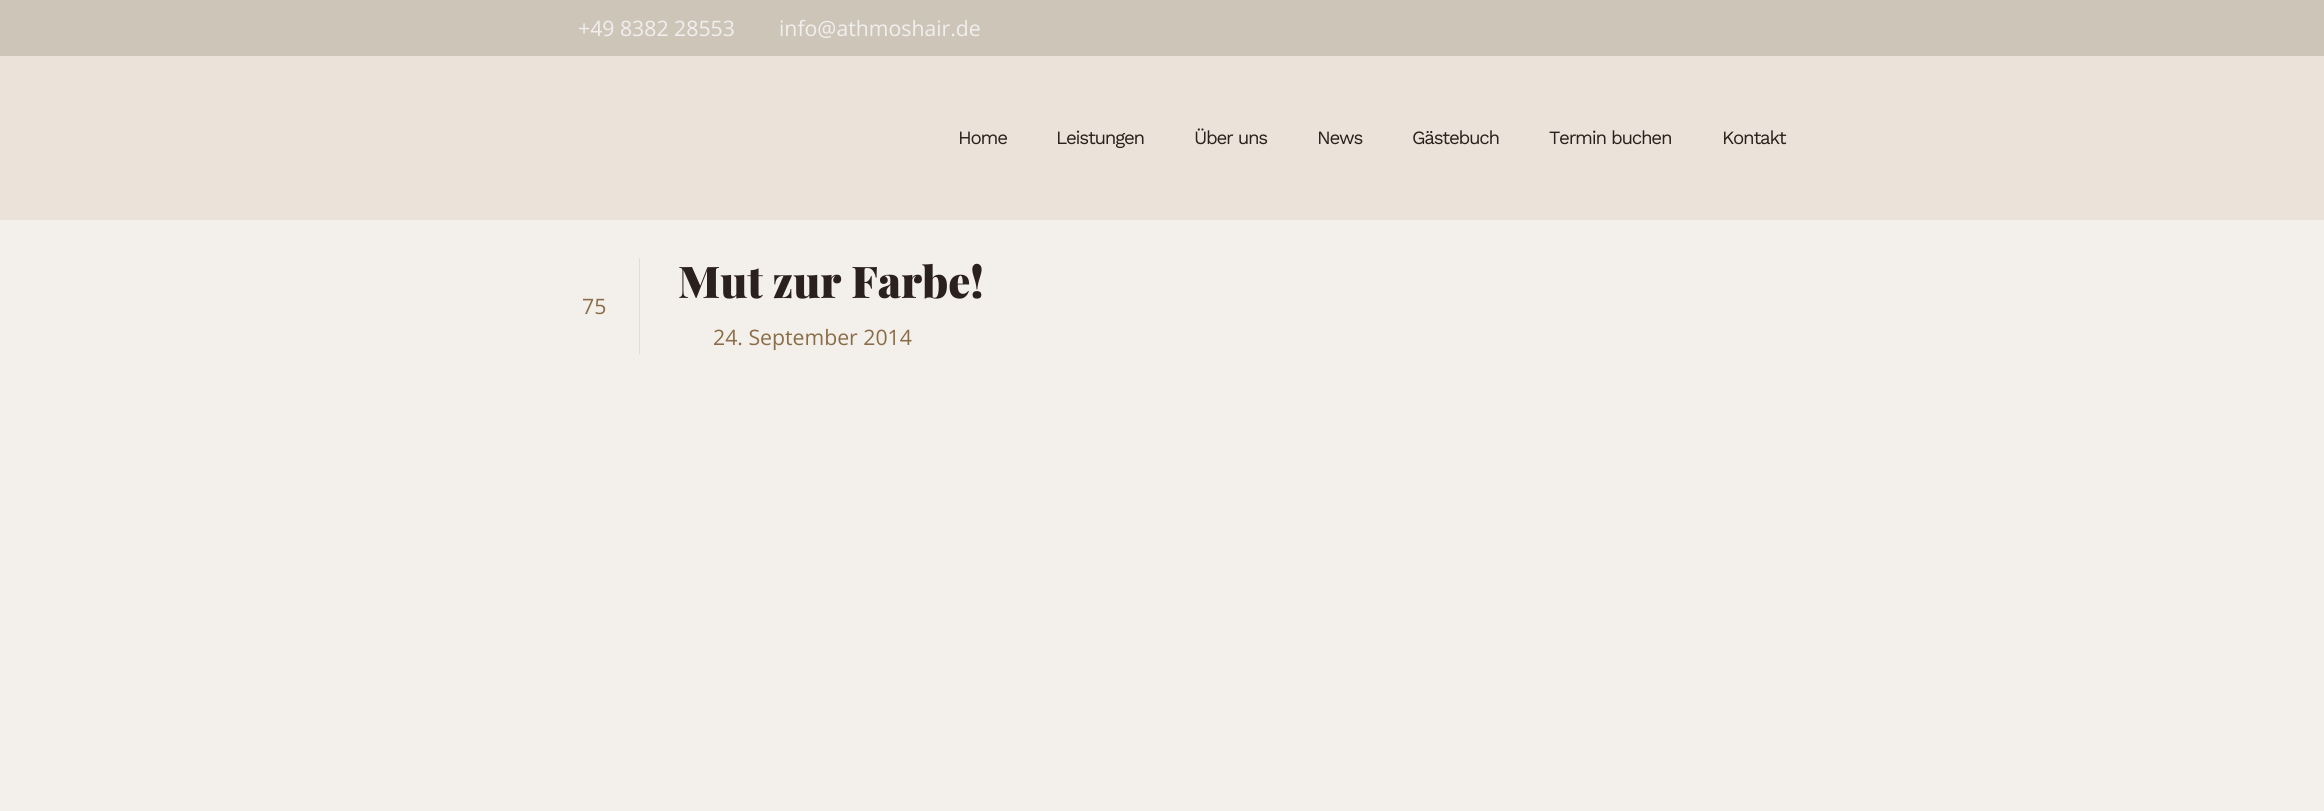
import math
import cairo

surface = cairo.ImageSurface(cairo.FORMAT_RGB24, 2324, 811)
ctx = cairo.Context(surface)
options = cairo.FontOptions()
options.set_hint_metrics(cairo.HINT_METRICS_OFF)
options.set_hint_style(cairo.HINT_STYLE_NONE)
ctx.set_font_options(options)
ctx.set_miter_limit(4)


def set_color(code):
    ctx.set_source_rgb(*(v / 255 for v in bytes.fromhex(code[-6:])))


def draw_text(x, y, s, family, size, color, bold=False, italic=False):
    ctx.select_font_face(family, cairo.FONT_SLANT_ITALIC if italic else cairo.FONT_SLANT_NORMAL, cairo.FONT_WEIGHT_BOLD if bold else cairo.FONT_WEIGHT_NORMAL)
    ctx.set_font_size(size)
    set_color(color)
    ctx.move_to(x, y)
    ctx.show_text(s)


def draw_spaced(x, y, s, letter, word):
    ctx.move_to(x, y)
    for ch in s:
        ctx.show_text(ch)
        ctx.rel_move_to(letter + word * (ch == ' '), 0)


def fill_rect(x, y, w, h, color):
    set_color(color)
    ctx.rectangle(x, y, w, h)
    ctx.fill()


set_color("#f3efeb")
ctx.paint()
fill_rect(0, 0, 2324, 56, "#cec5b9")
draw_text(578, 36, "+49 8382 28553", "Open Sans", 21.25, "#f0efef")
draw_text(779, 36, "info@athmoshair.de", "Open Sans", 21.25, "#f0efef")
fill_rect(0, 56, 2324, 164, "#ebe2da")
ctx.select_font_face("Work Sans")
ctx.set_font_size(18.75)
set_color("#2a201c")
draw_spaced(958, 144, "Home", -1.25, 0)
draw_spaced(1056, 144, "Leistungen", -1.25, 0)
draw_spaced(1194, 144, "Über uns", -1.25, 0)
draw_spaced(1317, 144, "News", -1.25, 0)
draw_spaced(1412, 144, "Gästebuch", -1.25, 0)
draw_spaced(1549, 144, "Termin buchen", -1.25, 0)
draw_spaced(1722, 144, "Kontakt", -1.25, 0)
draw_text(582, 314, "75", "Open Sans", 21.25, "#8a6d46")
fill_rect(639, 258, 1, 96, "#e0dcd8")
draw_text(678, 298, "Mut zur Farbe!", "Playfair Display Black", 43.75, "#2a201c")
draw_text(713, 345, "24. September 2014", "Open Sans", 21.25, "#8a6d46")
surface.write_to_png("output.png")
